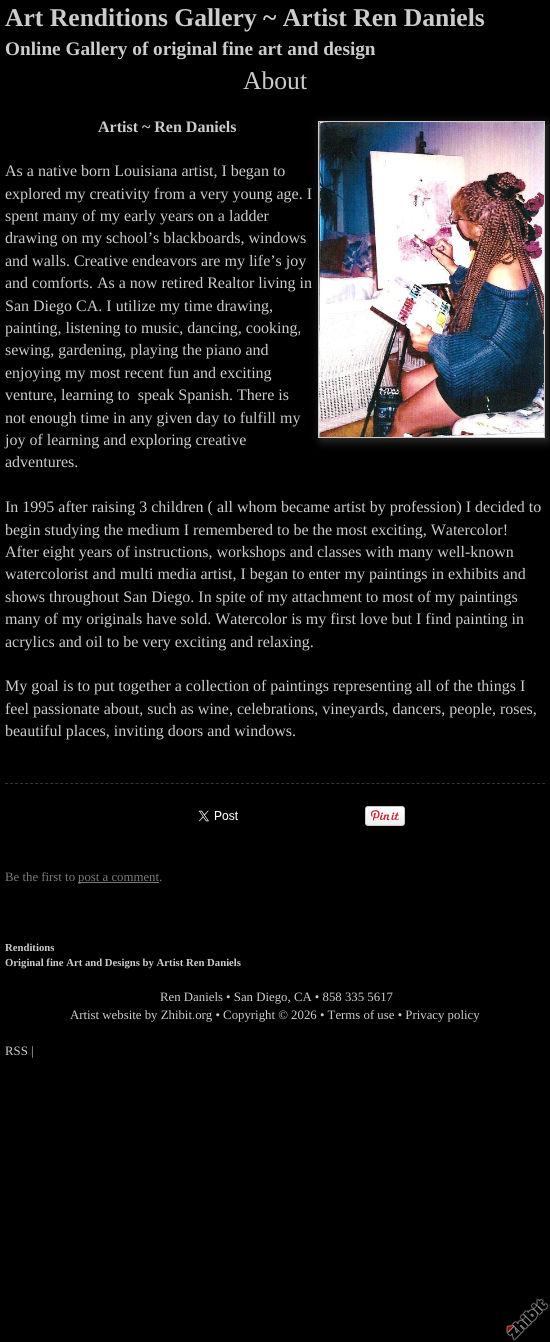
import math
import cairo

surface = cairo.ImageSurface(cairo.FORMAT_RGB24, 550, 1342)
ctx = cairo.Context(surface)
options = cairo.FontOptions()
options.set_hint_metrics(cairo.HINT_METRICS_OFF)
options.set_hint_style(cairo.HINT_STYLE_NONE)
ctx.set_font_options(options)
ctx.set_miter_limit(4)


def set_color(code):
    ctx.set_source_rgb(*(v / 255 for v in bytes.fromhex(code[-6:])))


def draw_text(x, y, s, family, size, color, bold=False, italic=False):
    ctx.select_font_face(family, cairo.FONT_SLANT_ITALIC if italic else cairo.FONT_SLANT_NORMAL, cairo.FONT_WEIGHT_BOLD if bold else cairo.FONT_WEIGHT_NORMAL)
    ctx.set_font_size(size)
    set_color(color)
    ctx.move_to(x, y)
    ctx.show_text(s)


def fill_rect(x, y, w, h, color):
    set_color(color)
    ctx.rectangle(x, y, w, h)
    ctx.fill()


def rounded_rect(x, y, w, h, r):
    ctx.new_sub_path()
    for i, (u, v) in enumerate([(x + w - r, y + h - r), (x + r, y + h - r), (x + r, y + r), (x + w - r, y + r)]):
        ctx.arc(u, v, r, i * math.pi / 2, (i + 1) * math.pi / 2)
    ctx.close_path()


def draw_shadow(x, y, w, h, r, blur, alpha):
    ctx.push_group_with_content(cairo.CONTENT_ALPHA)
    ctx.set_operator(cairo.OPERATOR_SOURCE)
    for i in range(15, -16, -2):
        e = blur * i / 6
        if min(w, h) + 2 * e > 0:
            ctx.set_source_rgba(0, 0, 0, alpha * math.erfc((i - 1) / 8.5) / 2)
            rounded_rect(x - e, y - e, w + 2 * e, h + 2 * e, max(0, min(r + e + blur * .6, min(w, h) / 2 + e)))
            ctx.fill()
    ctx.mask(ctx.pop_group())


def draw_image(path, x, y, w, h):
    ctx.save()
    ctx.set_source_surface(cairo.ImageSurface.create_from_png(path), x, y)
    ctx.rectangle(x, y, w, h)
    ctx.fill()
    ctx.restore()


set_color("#000000")
ctx.paint()
draw_text(5, 26, "Art Renditions Gallery ~ Artist Ren Daniels", "Liberation Serif", 25.6, "#cccccc", bold=True)
draw_text(5, 55, "Online Gallery of original fine art and design", "Liberation Serif", 19.25, "#cccccc", bold=True)
draw_text(243, 89, "About", "Liberation Serif", 25.6, "#cccccc")
set_color("#333333")
draw_shadow(321, 124, 227, 317, 0, 5, 1)
ctx.rectangle(318.5, 121.5, 226, 316)
set_color("#cccccc")
ctx.set_line_width(1)
ctx.stroke()
draw_image("assets/img1.png", 319, 122, 225, 315)
draw_text(98, 132, "Artist ~ Ren Daniels", "Liberation Serif", 16, "#cccccc", bold=True)
draw_text(5, 176, "As a native born Louisiana artist, I began to", "Liberation Serif", 16, "#cccccc")
draw_text(5, 199, "explored my creativity from a very young age. I", "Liberation Serif", 16, "#cccccc")
draw_text(5, 221, "spent many of my early years on a ladder", "Liberation Serif", 16, "#cccccc")
draw_text(5, 243, "drawing on my school’s blackboards, windows", "Liberation Serif", 16, "#cccccc")
draw_text(5, 266, "and walls. Creative endeavors are my life’s joy", "Liberation Serif", 16, "#cccccc")
draw_text(5, 288, "and comforts. As a now retired Realtor living in", "Liberation Serif", 16, "#cccccc")
draw_text(5, 311, "San Diego CA. I utilize my time drawing,", "Liberation Serif", 16, "#cccccc")
draw_text(5, 333, "painting, listening to music, dancing, cooking,", "Liberation Serif", 16, "#cccccc")
draw_text(5, 355, "sewing, gardening, playing the piano and", "Liberation Serif", 16, "#cccccc")
draw_text(5, 378, "enjoying my most recent fun and exciting", "Liberation Serif", 16, "#cccccc")
draw_text(5, 400, "venture, learning to  speak Spanish. There is", "Liberation Serif", 16, "#cccccc")
draw_text(5, 423, "not enough time in any given day to fulfill my", "Liberation Serif", 16, "#cccccc")
draw_text(5, 445, "joy of learning and exploring creative", "Liberation Serif", 16, "#cccccc")
draw_text(5, 467, "adventures.", "Liberation Serif", 16, "#cccccc")
draw_text(5, 512, "In 1995 after raising 3 children ( all whom became artist by profession) I decided to", "Liberation Serif", 16, "#cccccc")
draw_text(5, 535, "begin studying the medium I remembered to be the most exciting, Watercolor!", "Liberation Serif", 16, "#cccccc")
draw_text(5, 557, "After eight years of instructions, workshops and classes with many well-known", "Liberation Serif", 16, "#cccccc")
draw_text(5, 579, "watercolorist and multi media artist, I began to enter my paintings in exhibits and", "Liberation Serif", 16, "#cccccc")
draw_text(5, 602, "shows throughout San Diego. In spite of my attachment to most of my paintings", "Liberation Serif", 16, "#cccccc")
draw_text(5, 624, "many of my originals have sold. Watercolor is my first love but I find painting in", "Liberation Serif", 16, "#cccccc")
draw_text(5, 647, "acrylics and oil to be very exciting and relaxing.", "Liberation Serif", 16, "#cccccc")
draw_text(5, 691, "My goal is to put together a collection of paintings representing all of the things I", "Liberation Serif", 16, "#cccccc")
draw_text(5, 714, "feel passionate about, such as wine, celebrations, vineyards, dancers, people, roses,", "Liberation Serif", 16, "#cccccc")
draw_text(5, 736, "beautiful places, inviting doors and windows.", "Liberation Serif", 16, "#cccccc")
ctx.new_path()
ctx.move_to(5, 783.5)
ctx.line_to(545, 783.5)
set_color("#333333")
ctx.set_dash([3, 2.02])
ctx.stroke()
draw_image("assets/img2.png", 198, 810, 40, 12)
draw_image("assets/img3.png", 365, 806, 40, 20)
draw_text(5, 881, "Be the first to", "Liberation Serif", 12.8, "#7a7a7a")
fill_rect(78, 882, 81, 1, "#7a7a7a")
draw_text(78, 881, "post a comment.", "Liberation Serif", 12.8, "#7a7a7a")
draw_text(5, 951, "Renditions", "Liberation Serif", 10.7, "#cccccc", bold=True)
draw_text(5, 966, "Original fine Art and Designs by Artist Ren Daniels", "Liberation Serif", 10.7, "#cccccc", bold=True)
draw_text(160, 1001, "Ren Daniels • San Diego, CA • 858 335 5617", "Liberation Serif", 12.8, "#cccccc")
draw_text(70, 1019, "Artist website by Zhibit.org • Copyright © 2026 • Terms of use • Privacy policy", "Liberation Serif", 12.8, "#cccccc")
draw_text(5, 1055, "RSS |", "Liberation Serif", 12.8, "#cccccc")
draw_image("assets/img4.png", 506, 1298, 43, 43)
surface.write_to_png("output.png")
